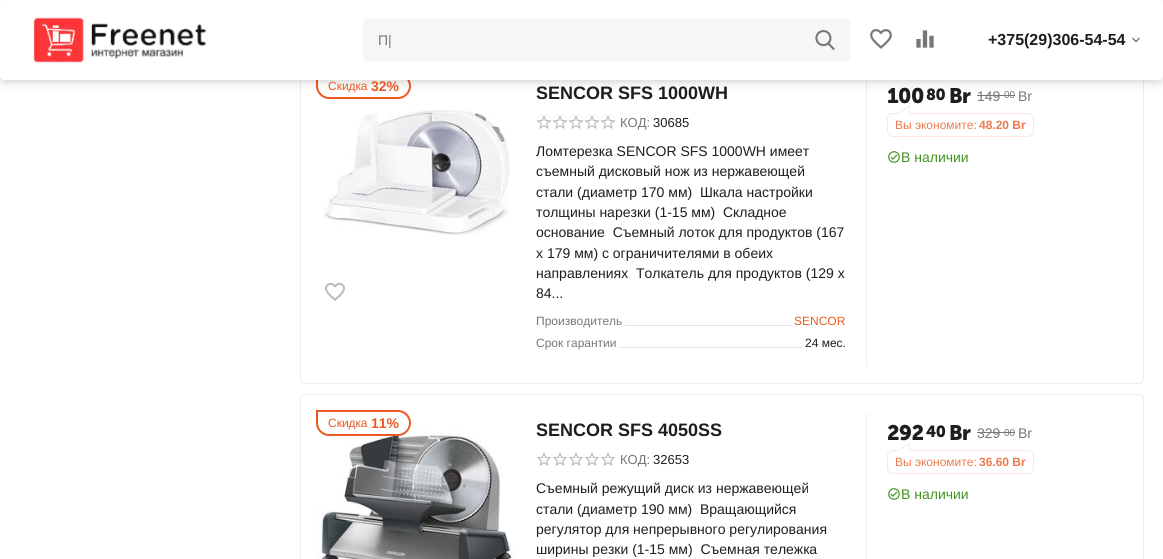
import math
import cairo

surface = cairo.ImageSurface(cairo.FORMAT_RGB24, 1163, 559)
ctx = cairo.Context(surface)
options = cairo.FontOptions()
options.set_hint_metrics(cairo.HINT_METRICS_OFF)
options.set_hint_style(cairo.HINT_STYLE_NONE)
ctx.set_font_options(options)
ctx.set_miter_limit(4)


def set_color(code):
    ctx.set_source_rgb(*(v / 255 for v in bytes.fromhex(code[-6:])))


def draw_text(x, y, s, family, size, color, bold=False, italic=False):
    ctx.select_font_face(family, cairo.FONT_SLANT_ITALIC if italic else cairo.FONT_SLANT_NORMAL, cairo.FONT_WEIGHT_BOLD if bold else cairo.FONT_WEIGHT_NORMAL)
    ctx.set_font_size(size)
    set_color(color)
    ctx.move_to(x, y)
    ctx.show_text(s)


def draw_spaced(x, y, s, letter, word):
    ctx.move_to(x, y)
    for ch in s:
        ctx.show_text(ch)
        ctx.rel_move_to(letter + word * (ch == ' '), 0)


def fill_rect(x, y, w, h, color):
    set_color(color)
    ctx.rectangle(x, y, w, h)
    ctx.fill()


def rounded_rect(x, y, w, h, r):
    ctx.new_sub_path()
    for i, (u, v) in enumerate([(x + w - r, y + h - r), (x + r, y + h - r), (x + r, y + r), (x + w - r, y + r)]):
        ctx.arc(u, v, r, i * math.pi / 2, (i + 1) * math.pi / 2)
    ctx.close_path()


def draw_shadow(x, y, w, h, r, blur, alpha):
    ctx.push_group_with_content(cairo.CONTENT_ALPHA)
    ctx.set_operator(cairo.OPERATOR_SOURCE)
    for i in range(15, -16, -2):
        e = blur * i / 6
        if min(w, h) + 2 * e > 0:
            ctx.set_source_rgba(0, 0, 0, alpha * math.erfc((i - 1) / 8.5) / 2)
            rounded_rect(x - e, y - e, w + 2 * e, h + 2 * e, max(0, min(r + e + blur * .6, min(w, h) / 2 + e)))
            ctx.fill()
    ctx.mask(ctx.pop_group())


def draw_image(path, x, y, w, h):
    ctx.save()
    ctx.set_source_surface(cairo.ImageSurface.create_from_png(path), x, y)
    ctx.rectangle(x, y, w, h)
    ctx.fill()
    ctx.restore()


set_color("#ffffff")
ctx.paint()
rounded_rect(300.5, 57.5, 843, 326, 4.5)
set_color("#eeeeee")
ctx.set_line_width(1)
ctx.stroke()
ctx.new_path()
ctx.move_to(317, 74)
ctx.line_to(398, 74)
ctx.curve_to(404.5, 74, 410, 79.5, 410, 86)
ctx.curve_to(410, 92.5, 404.5, 98, 398, 98)
ctx.line_to(329, 98)
ctx.curve_to(322.5, 98, 317, 92.5, 317, 86)
ctx.close_path()
set_color("#ea5920")
ctx.set_line_width(2)
ctx.stroke()
fill_rect(866, 76, 1, 290, "#eeeeee")
set_color("#ffffff")
rounded_rect(0, 0, 1163, 80, 5)
ctx.fill()
fill_rect(977, 95, 38, 1, "#777777")
ctx.save()
ctx.set_fill_rule(cairo.FILL_RULE_EVEN_ODD)
ctx.new_path()
ctx.move_to(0, 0)
ctx.line_to(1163, 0)
ctx.line_to(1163, 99)
ctx.line_to(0, 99)
ctx.close_path()
ctx.move_to(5, 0)
ctx.line_to(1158, 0)
ctx.curve_to(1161, 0, 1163, 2, 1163, 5)
ctx.line_to(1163, 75)
ctx.curve_to(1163, 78, 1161, 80, 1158, 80)
ctx.line_to(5, 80)
ctx.curve_to(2, 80, 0, 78, 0, 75)
ctx.line_to(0, 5)
ctx.curve_to(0, 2, 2, 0, 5, 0)
ctx.close_path()
ctx.clip()
set_color("#000000")
draw_shadow(0, 7, 1163, 80, 5, 3.5, 0.05)
ctx.restore()
ctx.save()
ctx.set_fill_rule(cairo.FILL_RULE_EVEN_ODD)
ctx.new_path()
ctx.move_to(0, 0)
ctx.line_to(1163, 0)
ctx.line_to(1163, 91)
ctx.line_to(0, 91)
ctx.close_path()
ctx.move_to(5, 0)
ctx.line_to(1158, 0)
ctx.curve_to(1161, 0, 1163, 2, 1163, 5)
ctx.line_to(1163, 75)
ctx.curve_to(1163, 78, 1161, 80, 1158, 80)
ctx.line_to(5, 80)
ctx.curve_to(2, 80, 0, 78, 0, 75)
ctx.line_to(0, 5)
ctx.curve_to(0, 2, 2, 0, 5, 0)
ctx.close_path()
ctx.clip()
set_color("#000000")
draw_shadow(0, 2, 1163, 80, 5, 2.5, 0.1)
ctx.restore()
draw_image("assets/img1.png", 33, 17, 174, 46)
set_color("#f6f6f6")
rounded_rect(363, 18, 487, 44, 6)
ctx.fill()
draw_text(378, 45, "П|", "Liberation Sans", 14, "#777777")
draw_image("assets/img2.png", 815, 30, 20, 20)
draw_image("assets/img3.png", 870, 29, 22, 20)
draw_image("assets/img4.png", 916, 30, 18, 18)
draw_text(988, 45, "+375(29)306-54-54", "Liberation Sans", 16, "#1e1e1e", bold=True)
draw_image("assets/img5.png", 1132, 37, 8, 6)
draw_text(328, 90, "Скидка", "Liberation Sans", 12, "#ea5920")
draw_text(371, 91, "32%", "Liberation Sans", 14, "#ea5920", bold=True)
draw_image("assets/img6.png", 323, 110, 187, 125)
draw_image("assets/img7.png", 325, 282, 20, 19)
draw_text(536, 99, "SENCOR SFS 1000WH", "Liberation Sans", 18, "#1e1e1e", bold=True)
draw_image("assets/img8.png", 536, 115, 80, 14)
draw_text(620, 127, "КОД:", "Liberation Sans", 13, "#777777")
draw_text(653, 127, "30685", "Liberation Sans", 13, "#1e1e1e")
draw_text(536, 156, "Ломтерезка SENCOR SFS 1000WH имеет", "Liberation Sans", 14, "#1e1e1e")
draw_text(536, 176, "съемный дисковый нож из нержавеющей", "Liberation Sans", 14, "#1e1e1e")
draw_text(536, 197, "стали (диаметр 170 мм)  Шкала настройки", "Liberation Sans", 14, "#1e1e1e")
draw_text(536, 217, "толщины нарезки (1-15 мм)  Складное", "Liberation Sans", 14, "#1e1e1e")
draw_text(536, 237, "основание  Съемный лоток для продуктов (167", "Liberation Sans", 14, "#1e1e1e")
draw_text(536, 258, "x 179 мм) с ограничителями в обеих", "Liberation Sans", 14, "#1e1e1e")
draw_text(536, 278, "направлениях  Толкатель для продуктов (129 x", "Liberation Sans", 14, "#1e1e1e")
draw_text(536, 298, "84...", "Liberation Sans", 14, "#1e1e1e")
draw_text(536, 325, "Производитель", "Liberation Sans", 12, "#777777")
fill_rect(625, 325, 166, 1, "#e4e4e4")
draw_text(794, 325, "SENCOR", "Liberation Sans", 12, "#ea5920")
draw_text(536, 347, "Срок гарантии", "Liberation Sans", 12, "#777777")
fill_rect(620, 347, 182, 1, "#e4e4e4")
draw_text(805, 347, "24 мес.", "Liberation Sans", 12, "#1e1e1e")
ctx.select_font_face("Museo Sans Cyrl", cairo.FONT_SLANT_NORMAL, cairo.FONT_WEIGHT_BOLD)
ctx.set_font_size(21)
draw_spaced(887, 103, "100", -0.5, 0)
ctx.set_font_size(16)
draw_spaced(926, 100, "80", -0.5, 0)
ctx.set_font_size(21)
draw_spaced(949, 103, "Br", -0.5, 0)
draw_text(977, 101, "149", "Liberation Sans", 14, "#777777")
draw_text(1004, 98, "00", "Liberation Sans", 10, "#777777")
draw_text(1018, 101, "Br", "Liberation Sans", 14, "#777777")
rounded_rect(887.5, 113.5, 146, 23, 5.5)
set_color("#fce6de")
ctx.set_line_width(1)
ctx.stroke()
set_color("#fce4db")
ctx.new_path()
ctx.move_to(910, 105)
ctx.line_to(910, 113)
ctx.line_to(898, 113)
ctx.close_path()
ctx.fill()
set_color("#ffffff")
ctx.new_path()
ctx.move_to(909, 107)
ctx.line_to(909, 114)
ctx.line_to(898, 114)
ctx.close_path()
ctx.fill()
draw_text(895, 129, "Вы экономите:", "Liberation Sans", 12, "#ee7a4d")
draw_text(979, 129, "48.20 Br", "Liberation Sans", 12, "#ee7a4d", bold=True)
draw_image("assets/img9.png", 888, 151, 12, 12)
draw_text(901, 162, "В наличии", "Liberation Sans", 14, "#429220")
rounded_rect(300.5, 394.5, 843, 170, 4.5)
set_color("#eeeeee")
ctx.stroke()
draw_image("assets/img10.png", 316, 430, 200, 129)
set_color("#ffffff")
ctx.new_path()
ctx.move_to(317, 411)
ctx.line_to(398, 411)
ctx.curve_to(404.5, 411, 410, 416.5, 410, 423)
ctx.curve_to(410, 429.5, 404.5, 435, 398, 435)
ctx.line_to(329, 435)
ctx.curve_to(322.5, 435, 317, 429.5, 317, 423)
ctx.close_path()
ctx.fill_preserve()
set_color("#ea5920")
ctx.set_line_width(2)
ctx.stroke()
draw_text(328, 427, "Скидка", "Liberation Sans", 12, "#ea5920")
draw_text(371, 428, "11%", "Liberation Sans", 14, "#ea5920", bold=True)
fill_rect(866, 413, 1, 146, "#eeeeee")
draw_text(536, 436, "SENCOR SFS 4050SS", "Liberation Sans", 18, "#1e1e1e", bold=True)
draw_image("assets/img8.png", 536, 452, 80, 14)
draw_text(620, 464, "КОД:", "Liberation Sans", 13, "#777777")
draw_text(653, 464, "32653", "Liberation Sans", 13, "#1e1e1e")
draw_text(536, 493, "Съемный режущий диск из нержавеющей", "Liberation Sans", 14, "#1e1e1e")
draw_text(536, 514, "стали (диаметр 190 мм)  Вращающийся", "Liberation Sans", 14, "#1e1e1e")
draw_text(536, 534, "регулятор для непрерывного регулирования", "Liberation Sans", 14, "#1e1e1e")
draw_text(536, 554, "ширины резки (1-15 мм)  Съемная тележка", "Liberation Sans", 14, "#1e1e1e")
ctx.select_font_face("Museo Sans Cyrl", cairo.FONT_SLANT_NORMAL, cairo.FONT_WEIGHT_BOLD)
ctx.set_font_size(21)
draw_spaced(887, 440, "292", -0.5, 0)
ctx.set_font_size(16)
draw_spaced(926, 437, "40", -0.5, 0)
ctx.set_font_size(21)
draw_spaced(949, 440, "Br", -0.5, 0)
draw_text(977, 438, "329", "Liberation Sans", 14, "#777777")
draw_text(1004, 436, "00", "Liberation Sans", 10, "#777777")
fill_rect(977, 432, 38, 1, "#777777")
draw_text(1018, 438, "Br", "Liberation Sans", 14, "#777777")
rounded_rect(887.5, 450.5, 146, 23, 5.5)
set_color("#fce6de")
ctx.set_line_width(1)
ctx.stroke()
set_color("#fce4db")
ctx.new_path()
ctx.move_to(910, 442)
ctx.line_to(910, 450)
ctx.line_to(898, 450)
ctx.close_path()
ctx.fill()
set_color("#ffffff")
ctx.new_path()
ctx.move_to(909, 444)
ctx.line_to(909, 451)
ctx.line_to(898, 451)
ctx.close_path()
ctx.fill()
draw_text(895, 466, "Вы экономите:", "Liberation Sans", 12, "#ee7a4d")
draw_text(979, 466, "36.60 Br", "Liberation Sans", 12, "#ee7a4d", bold=True)
draw_image("assets/img9.png", 888, 488, 12, 12)
draw_text(901, 499, "В наличии", "Liberation Sans", 14, "#429220")
surface.write_to_png("output.png")
